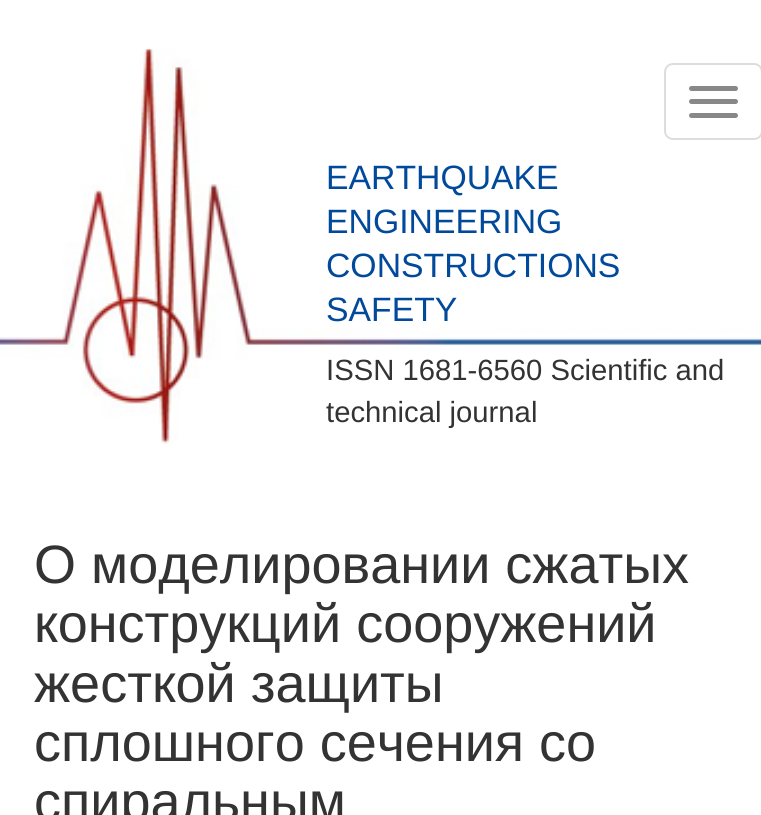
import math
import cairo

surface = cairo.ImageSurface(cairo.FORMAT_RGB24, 761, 815)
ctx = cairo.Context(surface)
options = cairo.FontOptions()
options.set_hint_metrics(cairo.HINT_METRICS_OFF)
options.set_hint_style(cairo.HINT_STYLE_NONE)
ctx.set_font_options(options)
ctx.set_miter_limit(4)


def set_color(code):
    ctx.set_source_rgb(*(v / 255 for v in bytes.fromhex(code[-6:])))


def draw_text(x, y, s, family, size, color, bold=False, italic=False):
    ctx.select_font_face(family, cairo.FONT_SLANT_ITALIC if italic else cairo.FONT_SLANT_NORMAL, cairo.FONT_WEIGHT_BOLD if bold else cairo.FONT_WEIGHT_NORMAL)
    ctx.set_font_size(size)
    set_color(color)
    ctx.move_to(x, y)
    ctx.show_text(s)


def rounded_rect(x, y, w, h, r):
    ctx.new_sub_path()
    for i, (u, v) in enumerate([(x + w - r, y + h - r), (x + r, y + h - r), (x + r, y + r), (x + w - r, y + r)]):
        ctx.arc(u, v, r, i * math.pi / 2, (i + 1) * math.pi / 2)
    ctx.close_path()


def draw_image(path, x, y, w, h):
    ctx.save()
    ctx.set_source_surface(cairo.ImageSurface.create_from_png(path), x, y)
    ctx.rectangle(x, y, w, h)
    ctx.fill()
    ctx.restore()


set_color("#ffffff")
ctx.paint()
draw_image("assets/img1.png", 0, 49, 761, 395)
rounded_rect(665, 64, 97, 75, 8)
set_color("#dddddd")
ctx.stroke()
set_color("#888888")
rounded_rect(689, 86, 49, 5, 2.5)
ctx.fill()
rounded_rect(689, 99, 49, 5, 2.5)
ctx.fill()
rounded_rect(689, 113, 49, 5, 2.5)
ctx.fill()
draw_text(326, 189, "EARTHQUAKE", "Liberation Sans", 33.75, "#01499a")
draw_text(326, 233, "ENGINEERING", "Liberation Sans", 33.75, "#01499a")
draw_text(326, 277, "CONSTRUCTIONS", "Liberation Sans", 33.75, "#01499a")
draw_text(326, 321, "SAFETY", "Liberation Sans", 33.75, "#01499a")
draw_text(326, 380, "ISSN 1681-6560 Scientific and", "Liberation Sans", 29.25, "#333333")
draw_text(326, 422, "technical journal", "Liberation Sans", 29.25, "#333333")
draw_text(34, 583, "О моделировании сжатых", "Liberation Sans", 54, "#333333")
draw_text(34, 642, "конструкций сооружений", "Liberation Sans", 54, "#333333")
draw_text(34, 702, "жесткой защиты", "Liberation Sans", 54, "#333333")
draw_text(34, 761, "сплошного сечения со", "Liberation Sans", 54, "#333333")
draw_text(34, 820, "спиральным", "Liberation Sans", 54, "#333333")
surface.write_to_png("output.png")
